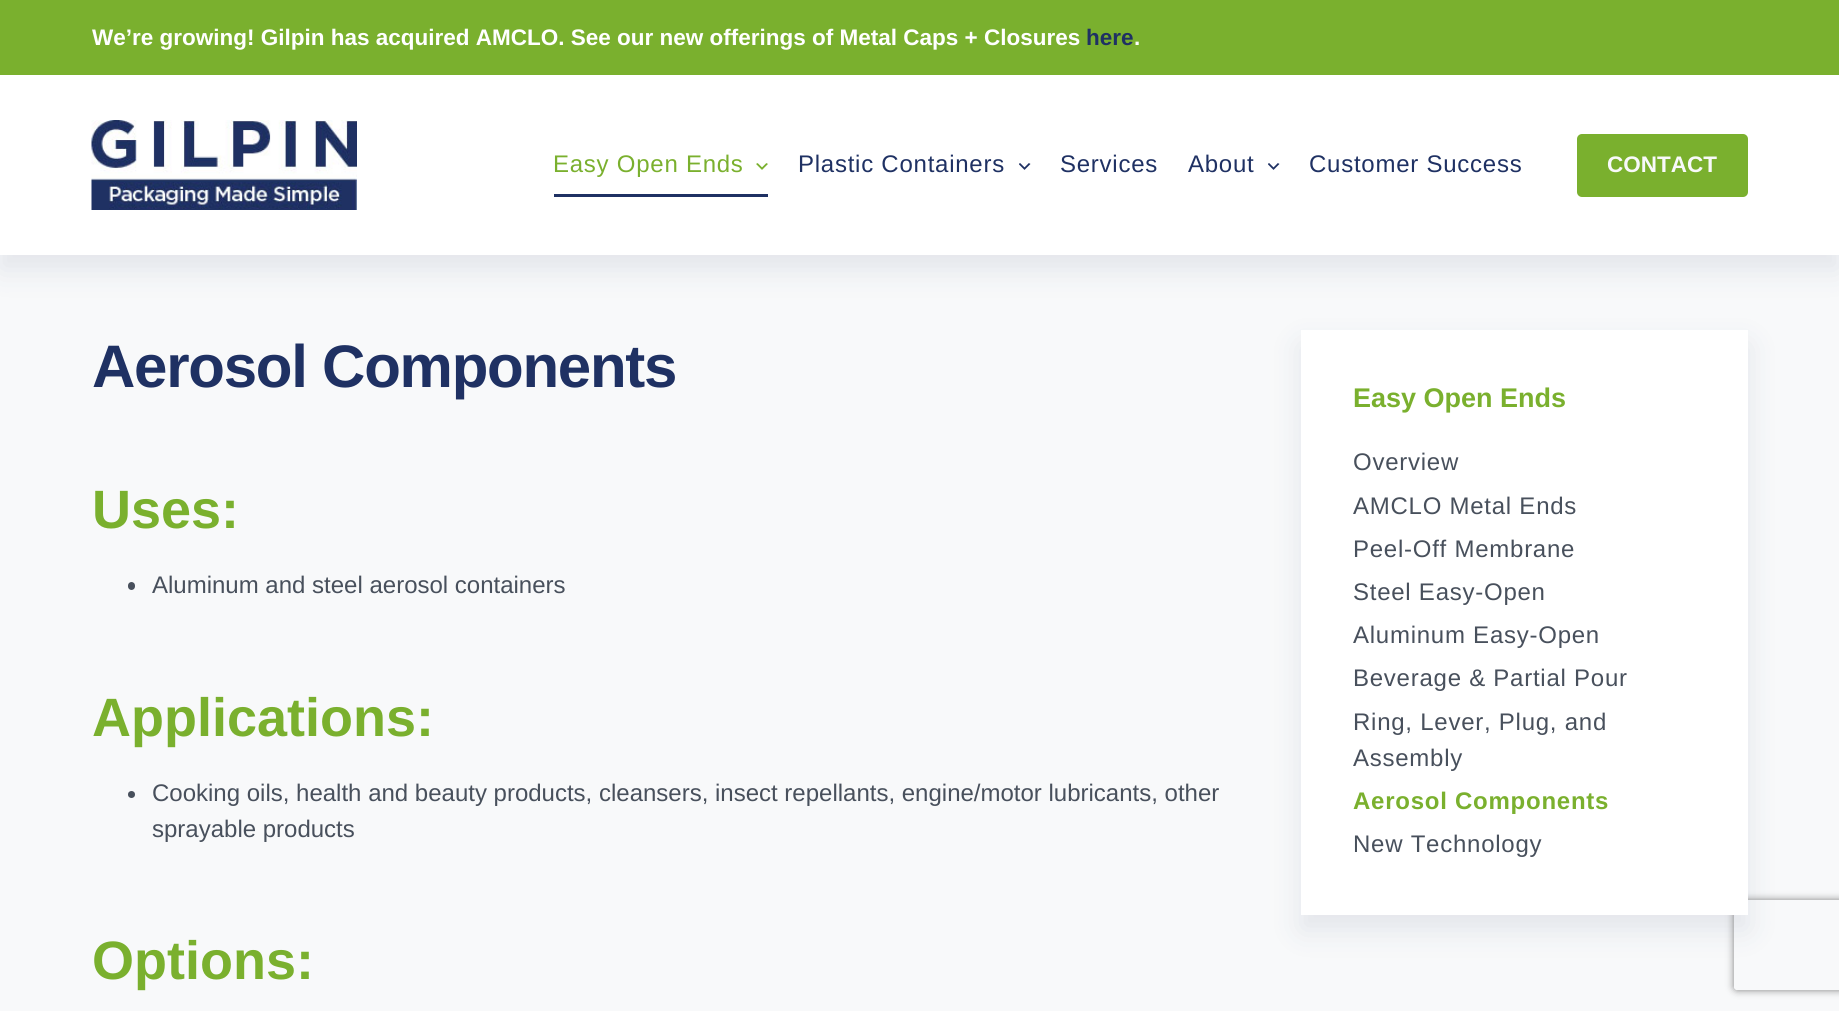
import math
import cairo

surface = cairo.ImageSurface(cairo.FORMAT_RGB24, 1839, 1011)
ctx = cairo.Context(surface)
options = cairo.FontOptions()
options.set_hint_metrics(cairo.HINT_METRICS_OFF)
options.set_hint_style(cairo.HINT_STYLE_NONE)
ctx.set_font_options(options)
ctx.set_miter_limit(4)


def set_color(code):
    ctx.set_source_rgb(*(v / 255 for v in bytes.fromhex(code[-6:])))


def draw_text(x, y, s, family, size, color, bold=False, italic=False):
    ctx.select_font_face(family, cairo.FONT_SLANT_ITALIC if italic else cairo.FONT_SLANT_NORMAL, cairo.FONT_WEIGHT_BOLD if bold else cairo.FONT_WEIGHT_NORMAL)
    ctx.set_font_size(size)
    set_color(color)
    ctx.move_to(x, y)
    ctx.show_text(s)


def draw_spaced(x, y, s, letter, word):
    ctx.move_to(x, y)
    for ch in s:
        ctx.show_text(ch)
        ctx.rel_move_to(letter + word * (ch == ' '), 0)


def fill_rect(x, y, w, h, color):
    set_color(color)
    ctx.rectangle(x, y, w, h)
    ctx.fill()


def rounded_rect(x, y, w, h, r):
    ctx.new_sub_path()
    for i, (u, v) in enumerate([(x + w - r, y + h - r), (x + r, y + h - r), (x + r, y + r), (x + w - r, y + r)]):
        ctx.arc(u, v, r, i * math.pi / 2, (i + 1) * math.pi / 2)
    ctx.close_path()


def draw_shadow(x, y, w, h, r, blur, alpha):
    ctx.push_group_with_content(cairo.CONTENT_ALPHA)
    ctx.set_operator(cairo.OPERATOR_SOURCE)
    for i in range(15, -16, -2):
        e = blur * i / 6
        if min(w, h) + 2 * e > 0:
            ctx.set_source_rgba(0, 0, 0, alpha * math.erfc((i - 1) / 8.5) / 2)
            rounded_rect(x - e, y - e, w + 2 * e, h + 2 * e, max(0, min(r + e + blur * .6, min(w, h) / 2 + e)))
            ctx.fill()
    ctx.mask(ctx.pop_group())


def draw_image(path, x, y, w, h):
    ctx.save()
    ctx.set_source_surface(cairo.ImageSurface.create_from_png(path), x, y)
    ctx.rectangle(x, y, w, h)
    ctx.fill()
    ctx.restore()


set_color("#f8f9fa")
ctx.paint()
set_color("#1f2f61")
draw_shadow(0, 90, 1839, 180, 0, 15, 0.1)
fill_rect(0, 0, 1839, 75, "#7ab02e")
draw_text(92, 45, "We’re growing! Gilpin has acquired AMCLO. See our new offerings of Metal Caps + Closures", "Liberation Sans", 22.5, "#ffffff", bold=True)
draw_text(1086, 45, "here", "Liberation Sans", 22.5, "#1f3163", bold=True)
draw_text(1134, 45, ".", "Liberation Sans", 22.5, "#ffffff", bold=True)
fill_rect(0, 75, 1839, 180, "#ffffff")
draw_image("assets/img1.png", 91, 120, 266, 90)
ctx.select_font_face("Liberation Sans")
ctx.set_font_size(24)
set_color("#7ab02e")
draw_spaced(553, 172, "Easy Open Ends", 0.75, 0)
draw_image("assets/img2.png", 756, 163, 12, 7)
fill_rect(554, 194, 214, 3, "#1f3163")
draw_spaced(798, 172, "Plastic Containers", 0.75, 0)
draw_image("assets/img3.png", 1019, 163, 12, 7)
draw_spaced(1060, 172, "Services", 0.75, 0)
draw_spaced(1188, 172, "About", 0.75, 0)
draw_image("assets/img3.png", 1268, 163, 12, 7)
draw_spaced(1309, 172, "Customer Success", 0.75, 0)
set_color("#7ab02e")
rounded_rect(1577, 134, 171, 63, 5)
ctx.fill()
draw_text(1607, 172, "CONTACT", "Liberation Sans", 22.5, "#f8f9fa", bold=True)
ctx.set_font_size(60)
set_color("#1f3163")
draw_spaced(92, 387, "Aerosol Components", -1.25, 0)
draw_text(92, 528, "Uses:", "Liberation Sans", 54, "#7ab02e", bold=True)
set_color("#48505c")
rounded_rect(128, 582, 7, 8, 3.5)
ctx.fill()
draw_text(152, 593, "Aluminum and steel aerosol containers", "Liberation Sans", 24, "#48505c")
draw_text(92, 736, "Applications:", "Liberation Sans", 54, "#7ab02e", bold=True)
set_color("#48505c")
ctx.new_path()
ctx.arc(131.5, 794.5, 3.5, 0, 2 * math.pi)
ctx.fill()
draw_text(152, 801, "Cooking oils, health and beauty products, cleansers, insect repellants, engine/motor lubricants, other", "Liberation Sans", 24, "#48505c")
draw_text(152, 837, "sprayable products", "Liberation Sans", 24, "#48505c")
draw_text(92, 979, "Options:", "Liberation Sans", 54, "#7ab02e", bold=True)
set_color("#1f2f61")
draw_shadow(1301, 345, 447, 585, 0, 15, 0.1)
ctx.save()
ctx.set_fill_rule(cairo.FILL_RULE_EVEN_ODD)
ctx.new_path()
ctx.move_to(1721, 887)
ctx.line_to(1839, 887)
ctx.line_to(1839, 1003)
ctx.line_to(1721, 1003)
ctx.close_path()
ctx.move_to(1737, 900)
ctx.line_to(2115, 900)
ctx.curve_to(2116.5, 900, 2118, 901.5, 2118, 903)
ctx.line_to(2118, 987)
ctx.curve_to(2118, 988.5, 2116.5, 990, 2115, 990)
ctx.line_to(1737, 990)
ctx.curve_to(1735.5, 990, 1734, 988.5, 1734, 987)
ctx.line_to(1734, 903)
ctx.curve_to(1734, 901.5, 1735.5, 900, 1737, 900)
ctx.close_path()
ctx.clip()
set_color("#808080")
draw_shadow(1734, 900, 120, 90, 3, 4, 1)
ctx.restore()
fill_rect(1301, 330, 447, 585, "#ffffff")
draw_text(1353, 407, "Easy Open Ends", "Liberation Sans", 27, "#7ab02e", bold=True)
ctx.select_font_face("Liberation Sans")
ctx.set_font_size(24)
set_color("#48505c")
draw_spaced(1353, 470, "Overview", 0.75, 0)
draw_spaced(1353, 514, "AMCLO Metal Ends", 0.75, 0)
draw_spaced(1353, 557, "Peel-Off Membrane", 0.75, 0)
draw_spaced(1353, 600, "Steel Easy-Open", 0.75, 0)
draw_spaced(1353, 643, "Aluminum Easy-Open", 0.75, 0)
draw_spaced(1353, 686, "Beverage & Partial Pour", 0.75, 0)
draw_spaced(1353, 730, "Ring, Lever, Plug, and", 0.75, 0)
draw_spaced(1353, 766, "Assembly", 0.75, 0)
ctx.select_font_face("Liberation Sans", cairo.FONT_SLANT_NORMAL, cairo.FONT_WEIGHT_BOLD)
set_color("#7ab02e")
draw_spaced(1353, 809, "Aerosol Components", 0.75, 0)
ctx.select_font_face("Liberation Sans")
set_color("#48505c")
draw_spaced(1353, 852, "New Technology", 0.75, 0)
surface.write_to_png("output.png")
